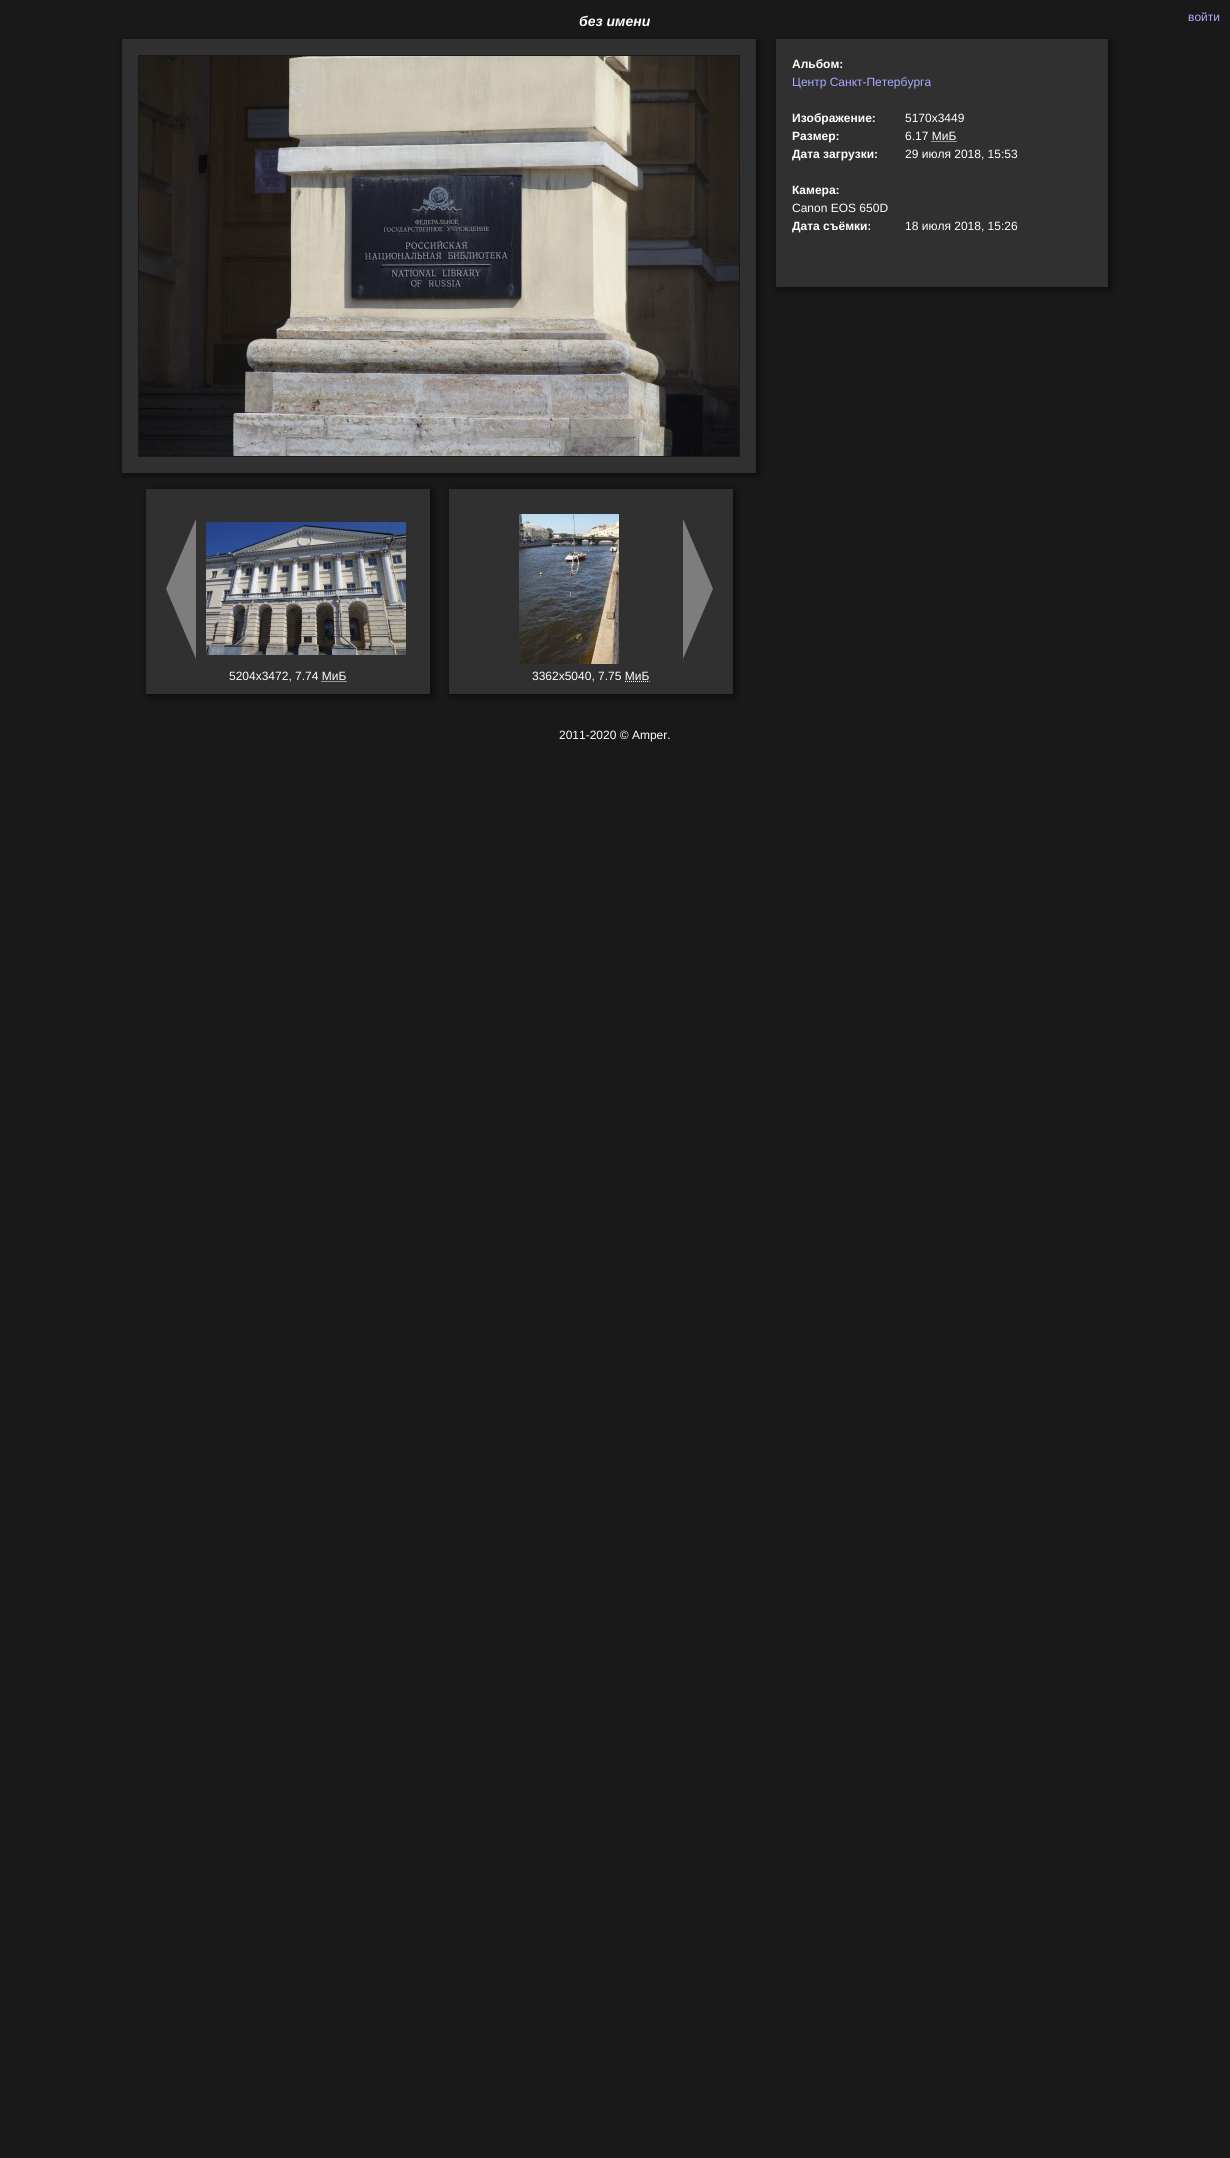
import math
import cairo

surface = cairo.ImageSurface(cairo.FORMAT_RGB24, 1230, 2158)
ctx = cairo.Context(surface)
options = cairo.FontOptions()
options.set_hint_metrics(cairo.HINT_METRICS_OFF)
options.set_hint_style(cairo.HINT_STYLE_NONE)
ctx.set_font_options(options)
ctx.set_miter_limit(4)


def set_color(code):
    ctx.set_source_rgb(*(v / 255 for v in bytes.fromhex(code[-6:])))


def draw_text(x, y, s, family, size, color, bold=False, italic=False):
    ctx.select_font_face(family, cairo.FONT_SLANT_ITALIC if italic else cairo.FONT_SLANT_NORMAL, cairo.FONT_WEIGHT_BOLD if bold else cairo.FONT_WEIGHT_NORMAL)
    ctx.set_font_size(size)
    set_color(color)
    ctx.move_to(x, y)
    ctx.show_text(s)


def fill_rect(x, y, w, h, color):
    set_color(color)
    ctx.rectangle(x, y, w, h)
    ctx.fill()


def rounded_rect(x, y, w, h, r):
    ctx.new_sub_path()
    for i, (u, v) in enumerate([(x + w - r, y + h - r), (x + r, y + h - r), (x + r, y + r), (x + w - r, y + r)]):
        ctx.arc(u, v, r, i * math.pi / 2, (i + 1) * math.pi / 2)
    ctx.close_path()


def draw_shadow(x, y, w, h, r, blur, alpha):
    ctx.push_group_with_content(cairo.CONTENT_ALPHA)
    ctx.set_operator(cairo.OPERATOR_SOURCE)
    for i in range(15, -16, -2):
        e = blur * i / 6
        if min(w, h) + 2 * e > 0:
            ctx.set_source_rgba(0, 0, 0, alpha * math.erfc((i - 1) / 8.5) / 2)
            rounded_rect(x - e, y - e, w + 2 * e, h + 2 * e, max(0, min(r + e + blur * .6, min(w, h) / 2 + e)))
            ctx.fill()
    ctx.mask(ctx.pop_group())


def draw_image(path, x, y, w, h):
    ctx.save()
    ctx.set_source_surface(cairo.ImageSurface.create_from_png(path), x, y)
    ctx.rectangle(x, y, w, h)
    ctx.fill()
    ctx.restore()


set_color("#191919")
ctx.paint()
draw_text(579, 26, "без имени", "Liberation Sans", 14, "#ffffff", bold=True, italic=True)
set_color("#000000")
draw_shadow(778, 41, 332, 248, 0, 4, 0.65)
fill_rect(776, 39, 332, 248, "#303030")
draw_text(792, 68, "Альбом:", "Liberation Sans", 12, "#ffffff", bold=True)
draw_text(792, 86, "Центр Санкт-Петербурга", "Liberation Sans", 12, "#a9a9ff")
draw_text(792, 122, "Изображение:", "Liberation Sans", 12, "#ffffff", bold=True)
draw_text(905, 122, "5170x3449", "Liberation Sans", 12, "#ffffff")
draw_text(792, 140, "Размер:", "Liberation Sans", 12, "#ffffff", bold=True)
draw_text(905, 140, "6.17 МиБ", "Liberation Sans", 12, "#ffffff")
ctx.new_path()
ctx.move_to(931.5, 141.5)
ctx.line_to(956.5, 141.5)
ctx.set_line_width(1)
ctx.set_dash([1, 1])
ctx.stroke()
draw_text(792, 158, "Дата загрузки:", "Liberation Sans", 12, "#ffffff", bold=True)
draw_text(905, 158, "29 июля 2018, 15:53", "Liberation Sans", 12, "#ffffff")
draw_text(792, 194, "Камера:", "Liberation Sans", 12, "#ffffff", bold=True)
draw_text(792, 212, "Canon EOS 650D", "Liberation Sans", 12, "#ffffff")
draw_text(792, 230, "Дата съёмки:", "Liberation Sans", 12, "#ffffff", bold=True)
draw_text(905, 230, "18 июля 2018, 15:26", "Liberation Sans", 12, "#ffffff")
set_color("#000000")
draw_shadow(124, 41, 634, 434, 0, 4, 0.65)
fill_rect(122, 39, 634, 434, "#303030")
ctx.rectangle(138.5, 55.5, 601, 401)
set_color("#191919")
ctx.set_dash([])
ctx.stroke()
draw_image("assets/img1.png", 139, 56, 600, 400)
set_color("#000000")
draw_shadow(148, 491, 284, 205, 0, 4, 0.65)
fill_rect(146, 489, 284, 205, "#303030")
draw_image("assets/img2.png", 166, 519, 30, 140)
draw_image("assets/img3.png", 206, 522, 200, 133)
draw_text(229, 680, "5204x3472, 7.74 МиБ", "Liberation Sans", 12, "#ffffff")
ctx.new_path()
ctx.move_to(321.5, 681.5)
ctx.line_to(346.5, 681.5)
ctx.set_dash([1, 1])
ctx.stroke()
set_color("#000000")
draw_shadow(451, 491, 284, 205, 0, 4, 0.65)
fill_rect(449, 489, 284, 205, "#303030")
draw_image("assets/img4.png", 519, 514, 100, 150)
draw_image("assets/img5.png", 683, 519, 30, 140)
draw_text(532, 680, "3362x5040, 7.75 МиБ", "Liberation Sans", 12, "#ffffff")
ctx.new_path()
ctx.move_to(625, 681.5)
ctx.line_to(649.5, 681.5)
ctx.stroke()
draw_text(1188, 21, "войти", "Liberation Sans", 12, "#a9a9ff")
draw_text(559, 739, "2011-2020 © Amper.", "Liberation Sans", 12, "#ffffff")
surface.write_to_png("output.png")
